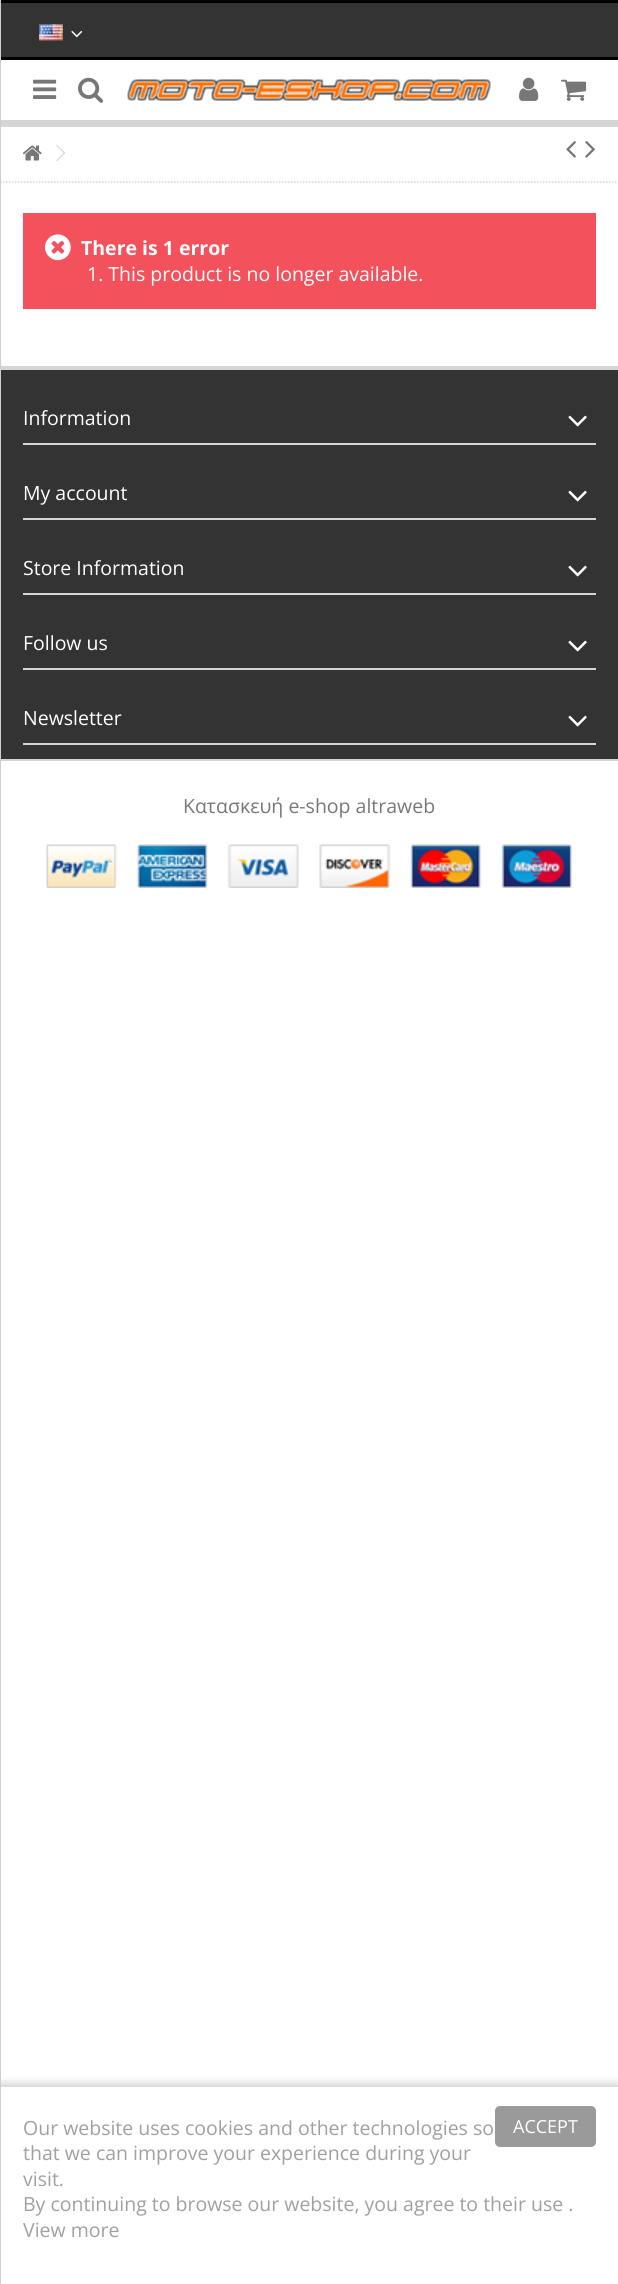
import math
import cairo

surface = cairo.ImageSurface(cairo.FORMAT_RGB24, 618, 2284)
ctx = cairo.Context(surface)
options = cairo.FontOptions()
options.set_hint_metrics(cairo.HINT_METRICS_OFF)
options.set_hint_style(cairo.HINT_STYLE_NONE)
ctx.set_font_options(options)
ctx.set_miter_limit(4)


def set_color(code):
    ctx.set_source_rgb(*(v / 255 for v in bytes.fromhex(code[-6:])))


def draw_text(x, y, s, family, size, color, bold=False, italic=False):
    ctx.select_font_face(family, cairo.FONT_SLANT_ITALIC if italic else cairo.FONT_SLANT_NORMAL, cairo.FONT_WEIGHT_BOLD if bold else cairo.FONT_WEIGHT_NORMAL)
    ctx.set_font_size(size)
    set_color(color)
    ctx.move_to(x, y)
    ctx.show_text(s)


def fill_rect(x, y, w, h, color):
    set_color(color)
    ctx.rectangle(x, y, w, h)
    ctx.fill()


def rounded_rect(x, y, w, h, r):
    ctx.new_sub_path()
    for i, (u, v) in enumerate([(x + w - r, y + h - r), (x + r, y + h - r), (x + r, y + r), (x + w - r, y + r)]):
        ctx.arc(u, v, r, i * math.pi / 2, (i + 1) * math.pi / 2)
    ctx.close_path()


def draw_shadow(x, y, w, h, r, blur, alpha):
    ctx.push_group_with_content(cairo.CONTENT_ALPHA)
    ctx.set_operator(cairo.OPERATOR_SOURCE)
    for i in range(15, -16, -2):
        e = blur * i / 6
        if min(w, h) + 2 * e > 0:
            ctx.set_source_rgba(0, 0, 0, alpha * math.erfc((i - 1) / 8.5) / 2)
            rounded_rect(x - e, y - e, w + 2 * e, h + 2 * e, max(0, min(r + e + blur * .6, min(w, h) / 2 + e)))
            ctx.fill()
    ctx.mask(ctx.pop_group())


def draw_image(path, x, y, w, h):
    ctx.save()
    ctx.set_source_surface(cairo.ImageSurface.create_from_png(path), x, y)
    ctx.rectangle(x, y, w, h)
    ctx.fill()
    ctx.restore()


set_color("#ffffff")
ctx.paint()
fill_rect(0, 120, 618, 7, "#d6d4d4")
fill_rect(0, 0, 618, 3, "#000000")
fill_rect(0, 57, 618, 3, "#000000")
ctx.new_path()
ctx.move_to(0, 182)
ctx.line_to(618, 182)
set_color("#d6d4d4")
ctx.set_line_width(1.5)
ctx.set_dash([1.5, 1.5])
ctx.stroke()
fill_rect(0, 366, 618, 4, "#d6d4d4")
fill_rect(0, 759, 618, 2, "#d6d4d4")
ctx.save()
ctx.rectangle(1, 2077, 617, 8)
ctx.clip()
set_color("#4d4d4d")
draw_shadow(0, 2082, 618, 200, 0, 4, 0.2)
ctx.restore()
fill_rect(0, 2085, 618, 2, "#dddddd")
fill_rect(0, 0, 1, 2284, "#cecece")
fill_rect(1, 3, 617, 54, "#333333")
draw_image("assets/img1.png", 39, 24, 24, 17)
draw_image("assets/img2.png", 71, 30, 12, 8)
draw_image("assets/img3.png", 33, 79, 24, 20)
draw_image("assets/img4.png", 78, 77, 25, 26)
draw_image("assets/img5.png", 127, 79, 364, 22)
draw_image("assets/img6.png", 519, 77, 20, 24)
draw_image("assets/img7.png", 561, 79, 26, 22)
draw_image("assets/img8.png", 22, 145, 20, 16)
set_color("#dddddd")
ctx.new_path()
ctx.move_to(57, 144.5)
ctx.line_to(65.5, 153)
ctx.line_to(64.5, 154)
ctx.line_to(56, 145.5)
ctx.close_path()
ctx.fill()
ctx.new_path()
ctx.move_to(64.5, 152)
ctx.line_to(65.5, 153)
ctx.line_to(57, 161.5)
ctx.line_to(56, 160.5)
ctx.close_path()
ctx.fill()
draw_image("assets/img9.png", 566, 141, 10, 17)
draw_image("assets/img10.png", 585, 141, 10, 17)
fill_rect(23, 213, 573, 96, "#f3515c")
draw_image("assets/img11.png", 45, 234, 26, 27)
draw_text(81, 255, "There is 1 error", "Open Sans", 19.5, "#ffffff", bold=True)
draw_text(87, 281, "1. This product is no longer available.", "Open Sans", 19.5, "#ffffff")
fill_rect(1, 370, 617, 389, "#333333")
fill_rect(23, 443, 573, 2, "#d6d4d4")
draw_text(23, 425, "Information", "Open Sans", 19.5, "#ffffff")
draw_image("assets/img12.png", 568, 415, 19, 12)
fill_rect(23, 518, 573, 2, "#d6d4d4")
draw_text(23, 500, "My account", "Open Sans", 19.5, "#ffffff")
draw_image("assets/img12.png", 568, 490, 19, 12)
fill_rect(23, 593, 573, 2, "#d6d4d4")
draw_text(23, 575, "Store Information", "Open Sans", 19.5, "#ffffff")
draw_image("assets/img12.png", 568, 565, 19, 12)
fill_rect(23, 668, 573, 2, "#d6d4d4")
draw_text(23, 650, "Follow us", "Open Sans", 19.5, "#ffffff")
draw_image("assets/img12.png", 568, 640, 19, 12)
fill_rect(23, 743, 573, 2, "#d6d4d4")
draw_text(23, 725, "Newsletter", "Open Sans", 19.5, "#ffffff")
draw_image("assets/img12.png", 568, 715, 19, 12)
draw_text(183, 813, "Κατασκευή e-shop altraweb", "Open Sans", 19.5, "#777777")
draw_image("assets/img13.png", 46, 844, 526, 44)
set_color("#9a9a9a")
rounded_rect(495, 2106, 101, 41, 5)
ctx.fill()
draw_text(513, 2133, "ACCEPT", "Open Sans", 18, "#ffffff")
draw_text(23, 2135, "Our website uses cookies and other technologies so", "Open Sans", 19.5, "#a0a0a0")
draw_text(23, 2160, "that we can improve your experience during your", "Open Sans", 19.5, "#a0a0a0")
draw_text(23, 2186, "visit.", "Open Sans", 19.5, "#a0a0a0")
draw_text(23, 2211, "By continuing to browse our website, you agree to their use .", "Open Sans", 19.5, "#a0a0a0")
draw_text(23, 2237, "View more", "Open Sans", 19.5, "#a0a0a0")
surface.write_to_png("output.png")
